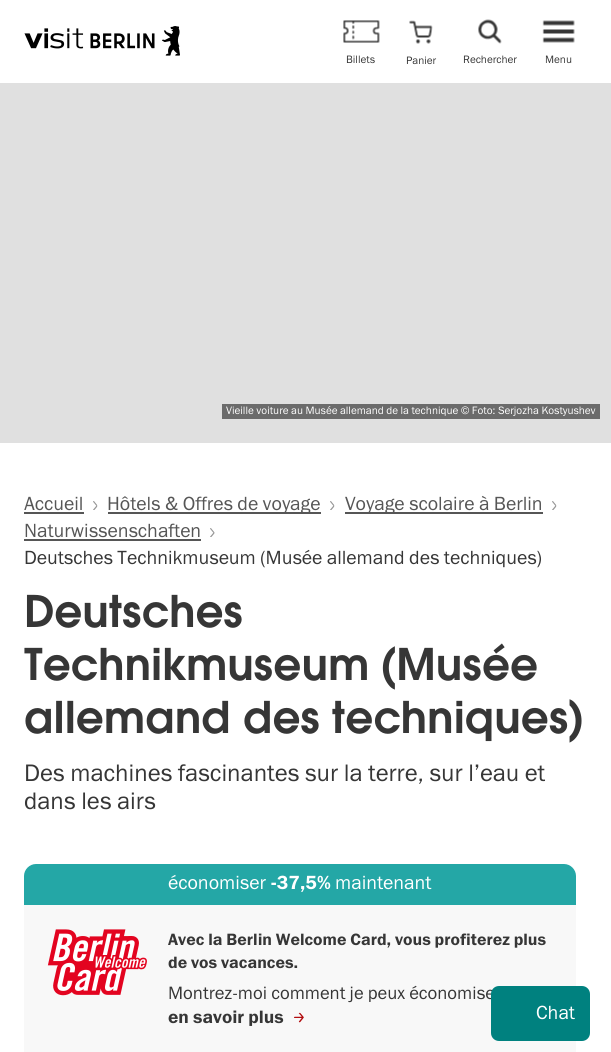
import math
import cairo

surface = cairo.ImageSurface(cairo.FORMAT_RGB24, 611, 1052)
ctx = cairo.Context(surface)
options = cairo.FontOptions()
options.set_hint_metrics(cairo.HINT_METRICS_OFF)
options.set_hint_style(cairo.HINT_STYLE_NONE)
ctx.set_font_options(options)
ctx.set_miter_limit(4)


def set_color(code):
    ctx.set_source_rgb(*(v / 255 for v in bytes.fromhex(code[-6:])))


def draw_text(x, y, s, family, size, color, bold=False, italic=False):
    ctx.select_font_face(family, cairo.FONT_SLANT_ITALIC if italic else cairo.FONT_SLANT_NORMAL, cairo.FONT_WEIGHT_BOLD if bold else cairo.FONT_WEIGHT_NORMAL)
    ctx.set_font_size(size)
    set_color(color)
    ctx.move_to(x, y)
    ctx.show_text(s)


def fill_rect(x, y, w, h, color):
    set_color(color)
    ctx.rectangle(x, y, w, h)
    ctx.fill()


def rounded_rect(x, y, w, h, r):
    ctx.new_sub_path()
    for i, (u, v) in enumerate([(x + w - r, y + h - r), (x + r, y + h - r), (x + r, y + r), (x + w - r, y + r)]):
        ctx.arc(u, v, r, i * math.pi / 2, (i + 1) * math.pi / 2)
    ctx.close_path()


def draw_image(path, x, y, w, h):
    ctx.save()
    ctx.set_source_surface(cairo.ImageSurface.create_from_png(path), x, y)
    ctx.rectangle(x, y, w, h)
    ctx.fill()
    ctx.restore()


set_color("#e0e0e0")
ctx.paint()
fill_rect(0, 0, 611, 83, "#ffffff")
draw_image("assets/img1.png", 343, 20, 37, 23)
draw_text(346, 63, "Billets", "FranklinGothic", 10.8, "#363636")
draw_image("assets/img2.png", 409, 20, 24, 24)
draw_text(406, 64, "Panier", "FranklinGothic", 10.8, "#363636")
draw_image("assets/img3.png", 478, 19, 24, 25)
draw_text(463, 63, "Rechercher", "FranklinGothic", 10.8, "#363636")
draw_image("assets/img4.png", 24, 26, 156, 30)
draw_image("assets/img5.png", 542, 20, 33, 23)
draw_text(545, 63, "Menu", "FranklinGothic", 10.8, "#363636")
fill_rect(222, 404, 378, 15, "#6b6b6b")
draw_text(226, 414, "Vieille voiture au Musée allemand de la technique", "FranklinGothic", 10.8, "#ffffff")
draw_text(461, 414, "© Foto: Serjozha Kostyushev", "FranklinGothic", 10.8, "#ffffff")
fill_rect(0, 443, 611, 609, "#ffffff")
draw_text(24, 510, "Accueil", "FranklinGothic", 19.2, "#565656")
fill_rect(24, 512, 60, 2, "#565656")
draw_image("assets/img6.png", 93, 501, 5, 9)
fill_rect(108, 512, 213, 2, "#565656")
draw_text(107, 510, "Hôtels & Offres de voyage", "FranklinGothic", 19.2, "#565656")
draw_image("assets/img6.png", 330, 501, 5, 9)
fill_rect(345, 512, 198, 2, "#565656")
draw_text(345, 510, "Voyage scolaire à Berlin", "FranklinGothic", 19.2, "#565656")
draw_image("assets/img6.png", 552, 501, 5, 9)
draw_text(24, 537, "Naturwissenschaften", "FranklinGothic", 19.2, "#565656")
fill_rect(24, 539, 177, 2, "#565656")
draw_image("assets/img7.png", 210, 528, 5, 9)
draw_text(24, 564, "Deutsches Technikmuseum (Musée allemand des techniques)", "FranklinGothic", 19.2, "#363636")
draw_text(24, 627, "Deutsches", "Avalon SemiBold", 48, "#363636")
draw_text(24, 680, "Technikmuseum (Musée", "Avalon SemiBold", 48, "#363636")
draw_text(24, 733, "allemand des techniques)", "Avalon SemiBold", 48, "#363636")
draw_text(24, 781, "Des machines fascinantes sur la terre, sur l’eau et", "FranklinGothic", 24, "#363636")
draw_text(24, 809, "dans les airs", "FranklinGothic", 24, "#363636")
set_color("#24a7a6")
ctx.new_path()
ctx.move_to(36, 864)
ctx.line_to(564, 864)
ctx.curve_to(570.5, 864, 576, 869.5, 576, 876)
ctx.line_to(576, 905)
ctx.line_to(24, 905)
ctx.line_to(24, 876)
ctx.curve_to(24, 869.5, 29.5, 864, 36, 864)
ctx.close_path()
ctx.fill()
draw_text(168, 889, "économiser", "FranklinGothic", 19.2, "#ffffff")
draw_text(271, 889, "-37,5%", "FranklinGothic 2", 19.2, "#ffffff")
draw_text(335, 889, "maintenant", "FranklinGothic", 19.2, "#ffffff")
fill_rect(24, 905, 552, 147, "#f8f8f8")
draw_image("assets/img8.png", 47, 929, 100, 67)
draw_text(168, 945, "Avec la Berlin Welcome Card, vous profiterez plus", "FranklinGothic 2", 16.5, "#363636")
draw_text(168, 968, "de vos vacances.", "FranklinGothic 2", 16.5, "#363636")
draw_text(168, 999, "Montrez-moi comment je peux économise", "FranklinGothic", 18, "#363636")
draw_text(168, 1023, "en savoir plus", "FranklinGothic 2", 18, "#363636")
draw_image("assets/img9.png", 294, 1012, 10, 11)
set_color("#00817f")
rounded_rect(491, 986, 99, 55, 8)
ctx.fill()
draw_text(536, 1019, "Chat", "FranklinGothic", 19.2, "#ffffff")
surface.write_to_png("output.png")
